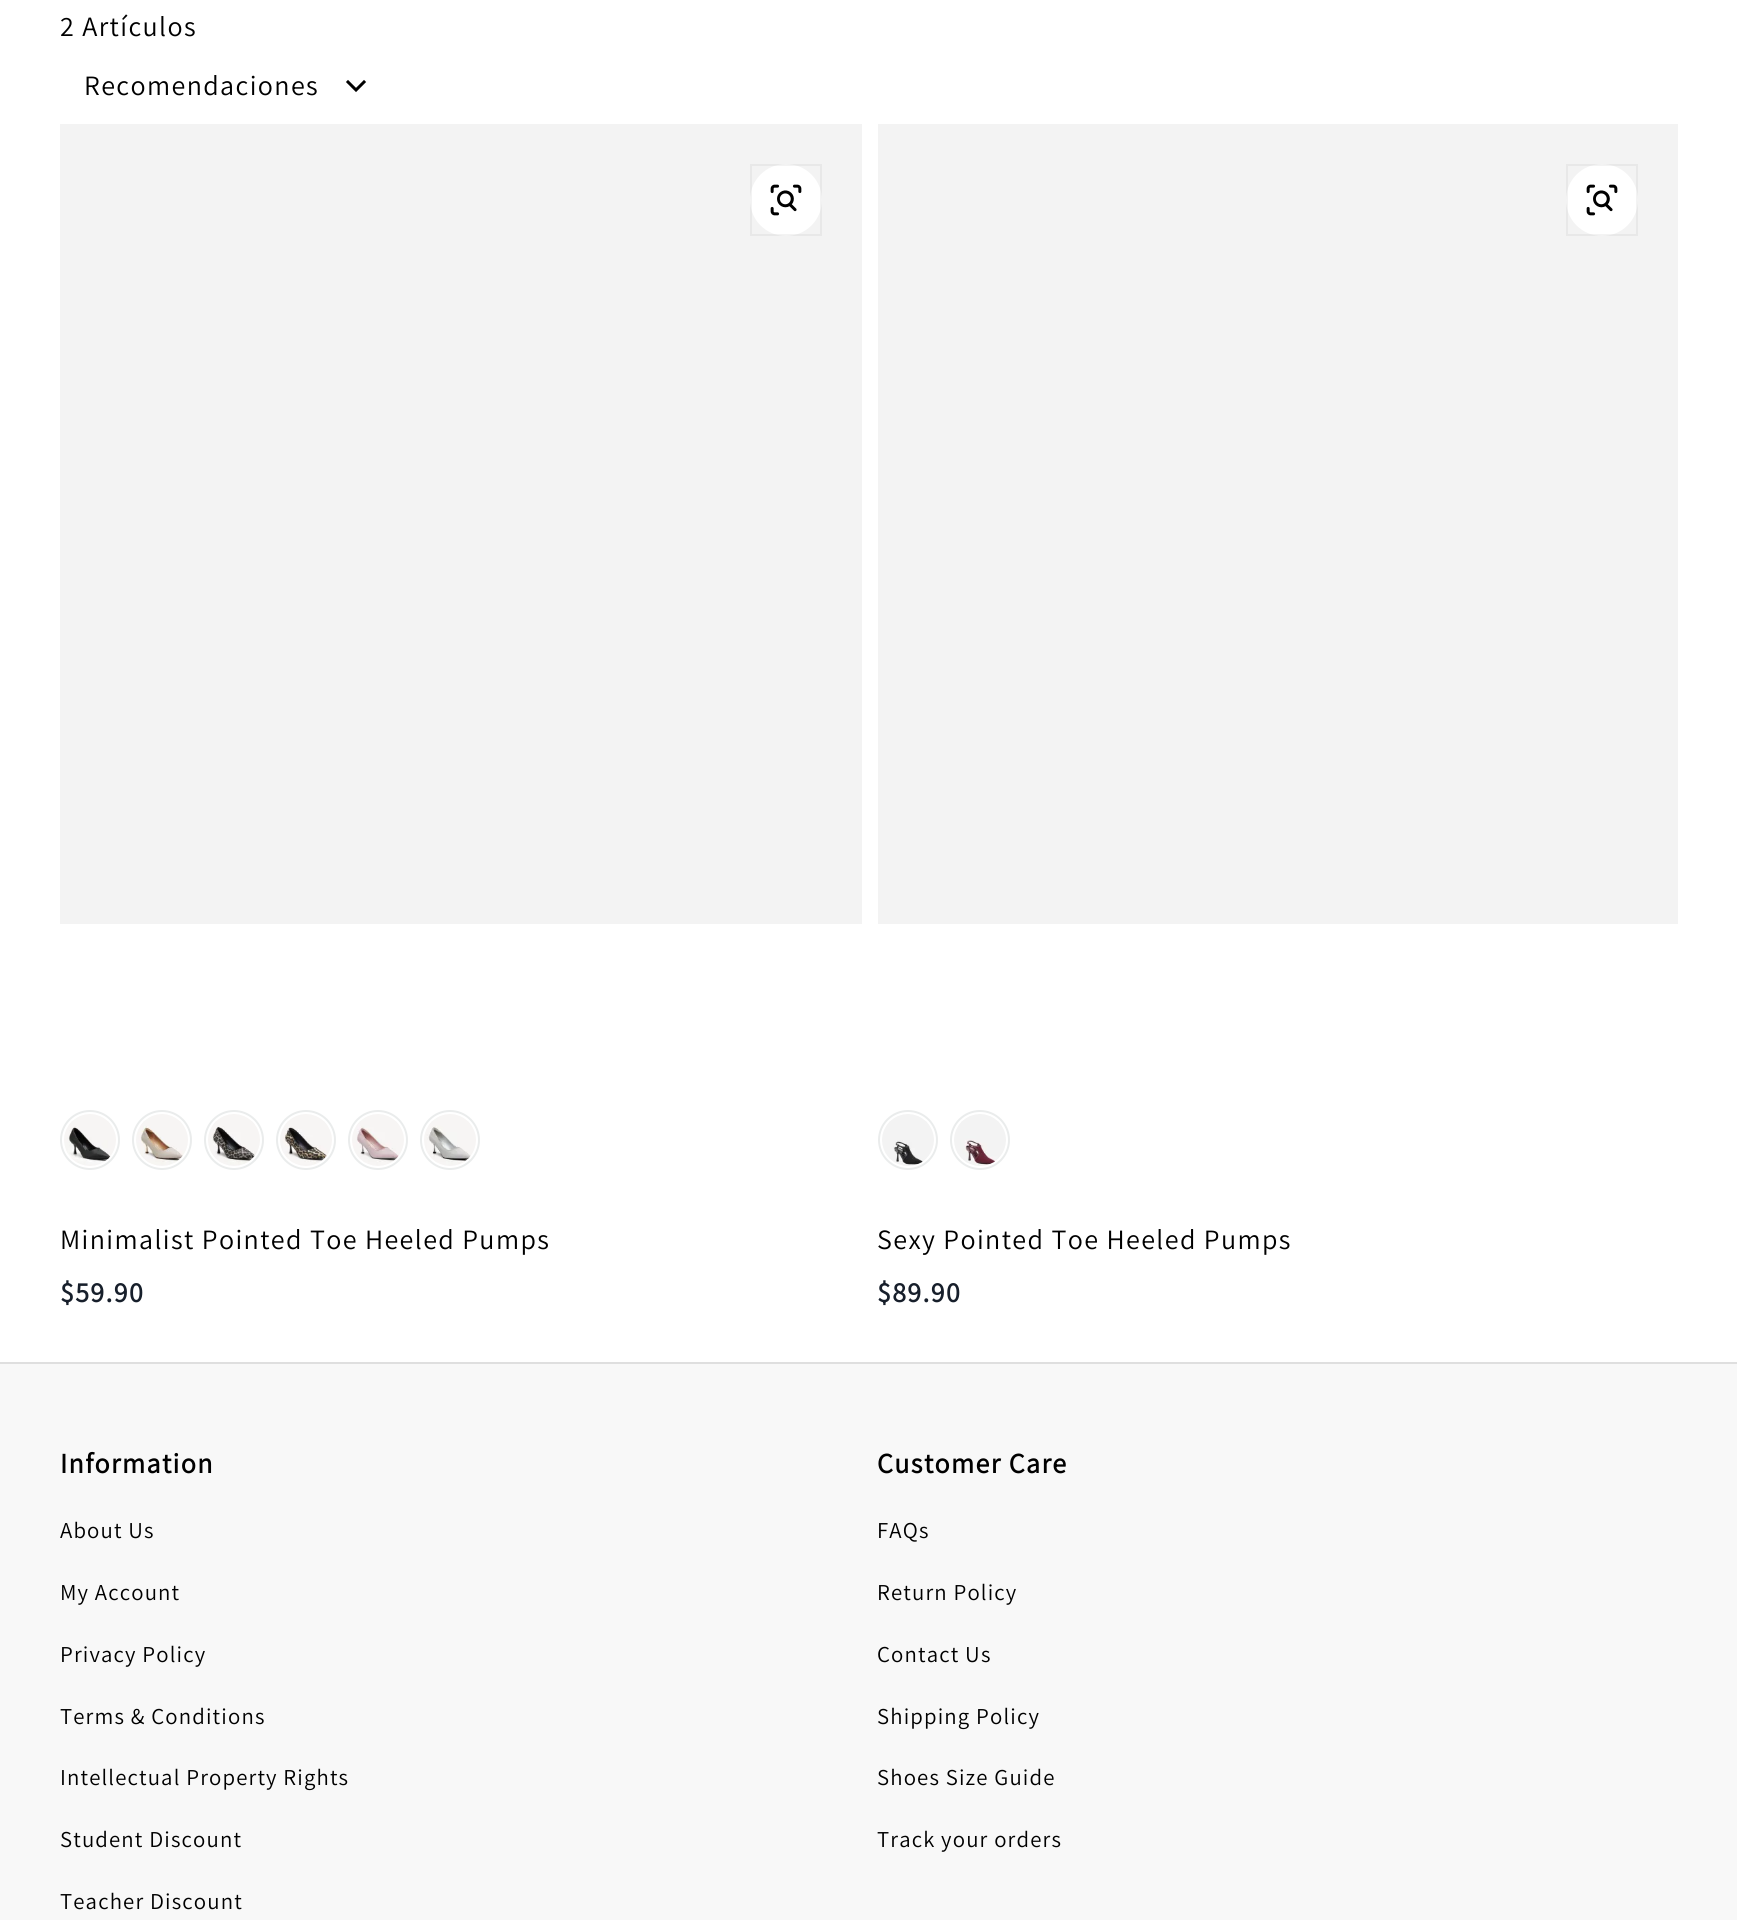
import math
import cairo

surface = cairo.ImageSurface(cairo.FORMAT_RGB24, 1737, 1920)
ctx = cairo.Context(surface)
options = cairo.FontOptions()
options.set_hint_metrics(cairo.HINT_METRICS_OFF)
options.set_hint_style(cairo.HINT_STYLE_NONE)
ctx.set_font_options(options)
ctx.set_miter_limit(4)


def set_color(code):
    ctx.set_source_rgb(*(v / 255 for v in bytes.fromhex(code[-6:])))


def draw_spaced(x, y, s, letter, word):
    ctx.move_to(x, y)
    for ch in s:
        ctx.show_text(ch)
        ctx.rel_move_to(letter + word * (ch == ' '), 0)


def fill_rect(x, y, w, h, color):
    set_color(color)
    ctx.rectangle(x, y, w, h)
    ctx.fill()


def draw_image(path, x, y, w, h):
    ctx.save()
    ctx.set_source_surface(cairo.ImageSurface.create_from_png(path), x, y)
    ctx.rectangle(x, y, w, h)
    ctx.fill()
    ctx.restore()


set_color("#ffffff")
ctx.paint()
ctx.select_font_face("Assistant ExtraLight")
ctx.set_font_size(28)
set_color("#000000")
draw_spaced(60, 36, "2 Artículos", 1.4, 0)
draw_spaced(84, 95, "Recomendaciones", 1.4, 0)
ctx.new_path()
ctx.move_to(348, 82)
ctx.line_to(356, 90)
ctx.line_to(364, 82)
ctx.set_line_width(3)
ctx.set_line_cap(cairo.LINE_CAP_SQUARE)
ctx.stroke()
fill_rect(60, 124, 802, 800, "#f3f3f3")
set_color("#ffffff")
ctx.arc(786, 200, 36, 0, 2 * math.pi)
ctx.fill()
draw_image("assets/img1.png", 770, 184, 32, 32)
ctx.rectangle(751, 165, 70, 70)
ctx.set_source_rgba(0, 0, 0, 0.05)
ctx.set_line_width(2)
ctx.set_line_cap(cairo.LINE_CAP_BUTT)
ctx.stroke()
ctx.arc(90, 1140, 29, 0, 2 * math.pi)
set_color("#eaecec")
ctx.stroke()
draw_image("assets/img2.png", 64, 1114, 52, 52)
ctx.arc(162, 1140, 29, 0, 2 * math.pi)
ctx.stroke()
draw_image("assets/img3.png", 136, 1114, 52, 52)
ctx.arc(234, 1140, 29, 0, 2 * math.pi)
ctx.stroke()
draw_image("assets/img4.png", 208, 1114, 52, 52)
ctx.arc(306, 1140, 29, 0, 2 * math.pi)
ctx.stroke()
draw_image("assets/img5.png", 280, 1114, 52, 52)
ctx.arc(378, 1140, 29, 0, 2 * math.pi)
ctx.stroke()
draw_image("assets/img6.png", 352, 1114, 52, 52)
ctx.arc(450, 1140, 29, 0, 2 * math.pi)
ctx.stroke()
draw_image("assets/img7.png", 424, 1114, 52, 52)
set_color("#000000")
draw_spaced(60, 1249, "Minimalist Pointed Toe Heeled Pumps", 1.4, 0)
ctx.select_font_face("Assistant", cairo.FONT_SLANT_NORMAL, cairo.FONT_WEIGHT_BOLD)
set_color("#171f2b")
draw_spaced(60, 1302, "$59.90", 1.4, 0)
fill_rect(878, 124, 800, 800, "#f3f3f3")
set_color("#ffffff")
ctx.new_path()
ctx.arc(1602, 200, 36, 0, 2 * math.pi)
ctx.fill()
draw_image("assets/img1.png", 1586, 184, 32, 32)
ctx.rectangle(1567, 165, 70, 70)
ctx.set_source_rgba(0, 0, 0, 0.05)
ctx.stroke()
ctx.arc(908, 1140, 29, 0, 2 * math.pi)
set_color("#eaecec")
ctx.stroke()
draw_image("assets/img8.png", 882, 1114, 52, 52)
ctx.arc(980, 1140, 29, 0, 2 * math.pi)
ctx.stroke()
draw_image("assets/img9.png", 954, 1114, 52, 52)
ctx.select_font_face("Assistant ExtraLight")
set_color("#000000")
draw_spaced(877, 1249, "Sexy Pointed Toe Heeled Pumps", 1.4, 0)
ctx.select_font_face("Assistant", cairo.FONT_SLANT_NORMAL, cairo.FONT_WEIGHT_BOLD)
set_color("#171f2b")
draw_spaced(877, 1302, "$89.90", 1.4, 0)
fill_rect(0, 1364, 1737, 556, "#f8f8f8")
fill_rect(0, 1362, 1737, 2, "#dfdfdf")
set_color("#000000")
draw_spaced(60, 1473, "Information", 1.4, 0)
ctx.select_font_face("Assistant ExtraLight")
ctx.set_font_size(22.75)
draw_spaced(60, 1538, "About Us", 1.15, 0)
draw_spaced(60, 1600, "My Account", 1.15, 0)
draw_spaced(60, 1662, "Privacy Policy", 1.15, 0)
draw_spaced(60, 1724, "Terms & Conditions", 1.15, 0)
draw_spaced(60, 1785, "Intellectual Property Rights", 1.15, 0)
draw_spaced(60, 1847, "Student Discount", 1.15, 0)
draw_spaced(60, 1909, "Teacher Discount", 1.15, 0)
ctx.select_font_face("Assistant", cairo.FONT_SLANT_NORMAL, cairo.FONT_WEIGHT_BOLD)
ctx.set_font_size(28)
draw_spaced(877, 1473, "Customer Care", 1.4, 0)
ctx.select_font_face("Assistant ExtraLight")
ctx.set_font_size(22.75)
draw_spaced(877, 1538, "FAQs", 1.15, 0)
draw_spaced(877, 1600, "Return Policy", 1.15, 0)
draw_spaced(877, 1662, "Contact Us", 1.15, 0)
draw_spaced(877, 1724, "Shipping Policy", 1.15, 0)
draw_spaced(877, 1785, "Shoes Size Guide", 1.15, 0)
draw_spaced(877, 1847, "Track your orders", 1.15, 0)
surface.write_to_png("output.png")
